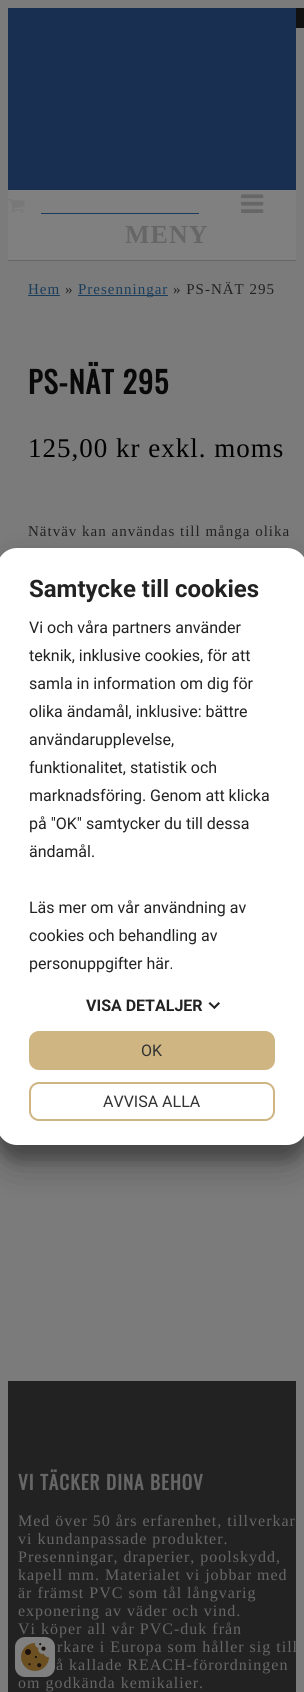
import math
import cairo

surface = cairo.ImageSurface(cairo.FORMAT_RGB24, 304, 1692)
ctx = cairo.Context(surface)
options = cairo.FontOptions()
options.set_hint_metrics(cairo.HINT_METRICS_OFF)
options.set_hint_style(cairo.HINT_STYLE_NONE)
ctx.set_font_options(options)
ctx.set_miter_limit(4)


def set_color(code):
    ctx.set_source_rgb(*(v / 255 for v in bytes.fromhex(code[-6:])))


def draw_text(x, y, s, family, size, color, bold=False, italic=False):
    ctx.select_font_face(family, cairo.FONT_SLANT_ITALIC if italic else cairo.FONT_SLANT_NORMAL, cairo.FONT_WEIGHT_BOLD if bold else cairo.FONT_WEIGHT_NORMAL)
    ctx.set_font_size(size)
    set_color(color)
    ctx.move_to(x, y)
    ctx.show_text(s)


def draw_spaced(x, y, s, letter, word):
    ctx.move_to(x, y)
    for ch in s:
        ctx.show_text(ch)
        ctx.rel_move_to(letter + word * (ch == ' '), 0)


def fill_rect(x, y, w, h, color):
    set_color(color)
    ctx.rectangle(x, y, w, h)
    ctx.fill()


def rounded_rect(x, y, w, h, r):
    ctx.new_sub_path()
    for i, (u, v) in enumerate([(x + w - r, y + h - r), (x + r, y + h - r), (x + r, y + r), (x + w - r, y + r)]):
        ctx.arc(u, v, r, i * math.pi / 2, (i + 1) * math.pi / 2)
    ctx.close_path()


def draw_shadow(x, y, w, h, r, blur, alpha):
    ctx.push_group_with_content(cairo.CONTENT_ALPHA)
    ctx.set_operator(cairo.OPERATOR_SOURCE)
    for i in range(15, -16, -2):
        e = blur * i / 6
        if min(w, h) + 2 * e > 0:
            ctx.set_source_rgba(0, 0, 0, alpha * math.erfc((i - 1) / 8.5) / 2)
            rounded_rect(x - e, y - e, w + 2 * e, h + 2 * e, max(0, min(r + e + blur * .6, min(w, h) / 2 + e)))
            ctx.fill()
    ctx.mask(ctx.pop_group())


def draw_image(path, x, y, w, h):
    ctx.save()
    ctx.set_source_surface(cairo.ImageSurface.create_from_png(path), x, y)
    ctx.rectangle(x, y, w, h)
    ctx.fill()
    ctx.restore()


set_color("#7b7b7b")
ctx.paint()
fill_rect(296, 8, 8, 20, "#111111")
fill_rect(8, 190, 288, 70, "#808080")
draw_image("assets/img1.png", 8, 199, 17, 14)
fill_rect(41, 213, 158, 1, "#1a3d5c")
fill_rect(8, 8, 288, 182, "#182f52")
fill_rect(8, 260, 288, 1, "#666666")
draw_image("assets/img2.png", 241, 194, 23, 19)
ctx.select_font_face("Liberation Serif", cairo.FONT_SLANT_NORMAL, cairo.FONT_WEIGHT_BOLD)
ctx.set_font_size(26)
draw_spaced(125, 243, "MENY", 1, 0)
ctx.select_font_face("Liberation Serif")
ctx.set_font_size(15)
set_color("#1a3d5c")
draw_spaced(28, 294, "Hem", 1, 0)
fill_rect(28, 295, 32, 1, "#1a3d5c")
set_color("#222222")
draw_spaced(65, 294, "»", 1, 0)
fill_rect(78, 295, 90, 1, "#1a3d5c")
draw_spaced(78, 294, "Presenningar", 1, 0)
set_color("#222222")
draw_spaced(173, 294, "» PS-NÄT 295", 1, 0)
ctx.select_font_face("Oswald", cairo.FONT_SLANT_NORMAL, cairo.FONT_WEIGHT_BOLD)
ctx.set_font_size(30)
set_color("#090909")
draw_spaced(28, 394, "PS-NÄT 295", 1, 0)
ctx.select_font_face("Liberation Serif")
ctx.set_font_size(27)
set_color("#000000")
draw_spaced(28, 457, "125,00 kr exkl. moms", 1, 0)
ctx.set_font_size(15)
set_color("#222222")
draw_spaced(28, 536, "Nätväv kan användas till många olika", 1, 0)
fill_rect(8, 1381, 288, 311, "#222222")
ctx.select_font_face("Oswald", cairo.FONT_SLANT_NORMAL, cairo.FONT_WEIGHT_BOLD)
ctx.set_font_size(19.25)
set_color("#666666")
draw_spaced(18, 1490, "VI TÄCKER DINA BEHOV", 1, 0)
ctx.select_font_face("Liberation Serif")
ctx.set_font_size(16)
draw_spaced(18, 1526, "Med över 50 års erfarenhet, tillverkar", 1, 0)
draw_spaced(18, 1544, "vi kundanpassade produkter.", 1, 0)
draw_spaced(18, 1562, "Presenningar, draperier, poolskydd,", 1, 0)
draw_spaced(18, 1580, "kapell mm. Materialet vi jobbar med", 1, 0)
draw_spaced(18, 1598, "är främst PVC som tål långvarig", 1, 0)
draw_spaced(18, 1616, "exponering av väder och vind.", 1, 0)
draw_spaced(18, 1634, "Vi köper all vår PVC-duk från", 1, 0)
draw_spaced(57, 1652, "rkare i Europa som håller sig till", 1, 0)
draw_spaced(56, 1670, "å kallade REACH-förordningen", 1, 0)
draw_spaced(18, 1688, "om godkända kemikalier.", 1, 0)
set_color("#000000")
draw_shadow(-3, 563, 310, 597, 20, 6, 0.22)
draw_shadow(-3, 567, 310, 597, 20, 19, 0.3)
set_color("#ffffff")
rounded_rect(-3, 548, 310, 597, 20)
ctx.fill()
draw_text(29, 597, "Samtycke till cookies", "Roboto", 24, "#222222", bold=True)
draw_text(29, 633, "Vi och våra partners använder", "Roboto", 16, "#222222")
draw_text(29, 661, "teknik, inklusive cookies, för att", "Roboto", 16, "#222222")
draw_text(29, 689, "samla in information om dig för", "Roboto", 16, "#222222")
draw_text(29, 717, "olika ändamål, inklusive: bättre", "Roboto", 16, "#222222")
draw_text(29, 745, "användarupplevelse,", "Roboto", 16, "#222222")
draw_text(29, 773, "funktionalitet, statistik och", "Roboto", 16, "#222222")
draw_text(29, 801, "marknadsföring. Genom att klicka", "Roboto", 16, "#222222")
draw_text(29, 829, "på \"OK\" samtycker du till dessa", "Roboto", 16, "#222222")
draw_text(29, 857, "ändamål.", "Roboto", 16, "#222222")
draw_text(29, 913, "Läs mer om vår användning av", "Roboto", 16, "#222222")
draw_text(29, 941, "cookies och behandling av", "Roboto", 16, "#222222")
draw_text(29, 969, "personuppgifter här.", "Roboto", 16, "#222222")
draw_text(86, 1011, "VISA DETALJER", "Roboto", 16, "#222222", bold=True)
set_color("#212121")
ctx.new_path()
ctx.move_to(218.5, 1002)
ctx.line_to(220, 1003.5)
ctx.line_to(214.5, 1009)
ctx.line_to(213, 1007.5)
ctx.close_path()
ctx.fill()
ctx.new_path()
ctx.move_to(210, 1002)
ctx.line_to(215.5, 1007.5)
ctx.line_to(214.5, 1009)
ctx.line_to(208.5, 1003.5)
ctx.close_path()
ctx.fill()
set_color("#ceb582")
rounded_rect(30, 1032, 244, 37, 9)
ctx.fill_preserve()
ctx.stroke()
draw_text(141, 1056, "OK", "Roboto", 16, "#333333")
rounded_rect(30, 1083, 244, 37, 9)
set_color("#ceb582")
ctx.stroke()
draw_text(103, 1107, "AVVISA ALLA", "Roboto", 16, "#333333")
set_color("#808080")
rounded_rect(15, 1637, 40, 40, 10)
ctx.fill()
draw_image("assets/img3.png", 21, 1643, 28, 28)
surface.write_to_png("output.png")
